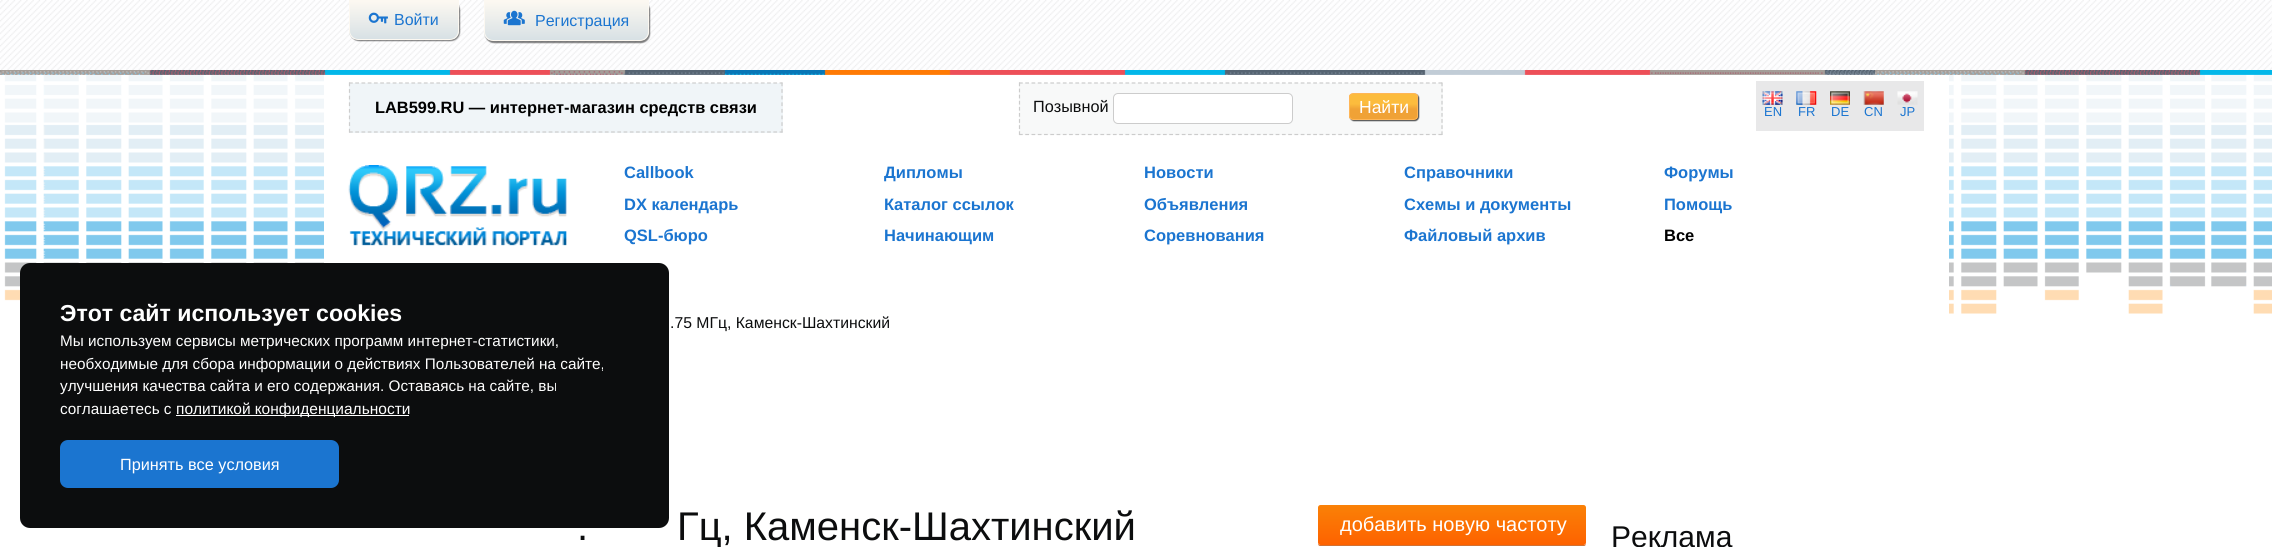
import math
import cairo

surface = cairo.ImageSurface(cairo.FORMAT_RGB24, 2272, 547)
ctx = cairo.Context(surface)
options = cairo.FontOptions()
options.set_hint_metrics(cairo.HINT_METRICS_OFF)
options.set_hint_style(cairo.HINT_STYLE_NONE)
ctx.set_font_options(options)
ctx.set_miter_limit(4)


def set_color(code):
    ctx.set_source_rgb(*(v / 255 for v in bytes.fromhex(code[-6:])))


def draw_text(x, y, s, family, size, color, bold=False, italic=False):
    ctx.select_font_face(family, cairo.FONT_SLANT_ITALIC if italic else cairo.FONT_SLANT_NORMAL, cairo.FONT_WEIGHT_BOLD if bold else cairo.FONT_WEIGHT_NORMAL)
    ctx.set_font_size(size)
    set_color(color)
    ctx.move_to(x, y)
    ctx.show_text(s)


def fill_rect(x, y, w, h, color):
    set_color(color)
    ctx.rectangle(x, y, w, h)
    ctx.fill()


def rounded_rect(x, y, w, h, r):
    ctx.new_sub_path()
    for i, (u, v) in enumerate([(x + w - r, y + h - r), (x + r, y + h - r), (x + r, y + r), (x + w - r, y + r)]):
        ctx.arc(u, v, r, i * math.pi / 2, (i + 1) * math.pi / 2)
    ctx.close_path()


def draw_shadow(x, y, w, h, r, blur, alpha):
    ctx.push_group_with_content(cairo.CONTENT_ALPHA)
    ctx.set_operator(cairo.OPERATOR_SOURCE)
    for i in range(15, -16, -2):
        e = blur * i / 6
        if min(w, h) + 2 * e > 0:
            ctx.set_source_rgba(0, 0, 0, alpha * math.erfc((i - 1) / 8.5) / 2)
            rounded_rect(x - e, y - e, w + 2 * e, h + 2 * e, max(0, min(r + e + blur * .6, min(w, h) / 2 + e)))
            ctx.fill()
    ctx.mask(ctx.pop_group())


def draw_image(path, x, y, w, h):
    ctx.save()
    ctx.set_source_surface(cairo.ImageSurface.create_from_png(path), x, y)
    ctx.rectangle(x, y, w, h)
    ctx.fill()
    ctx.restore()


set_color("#ffffff")
ctx.paint()
draw_image("assets/img5.png", 4, 74, 2268, 240)
fill_rect(324, 75, 1625, 239, "#ffffff")
set_color("#0c0d0e")
rounded_rect(20, 263, 649, 265, 10)
ctx.fill()
draw_text(60, 321, "Этот сайт использует cookies", "Liberation Sans", 23.1, "#ffffff", bold=True)
draw_text(60, 346, "Мы используем сервисы метрических программ интернет-статистики,", "Liberation Sans", 15.3, "#ffffff")
draw_text(60, 369, "необходимые для сбора информации о действиях Пользователей на сайте,", "Liberation Sans", 15.3, "#ffffff")
draw_text(60, 391, "улучшения качества сайта и его содержания. Оставаясь на сайте, вы", "Liberation Sans", 15.3, "#ffffff")
draw_text(60, 414, "соглашаетесь с", "Liberation Sans", 15.3, "#ffffff")
fill_rect(176, 415, 233, 1, "#ffffff")
draw_text(176, 414, "политикой конфиденциальности", "Liberation Sans", 15.5, "#ffffff")
set_color("#1b75d0")
rounded_rect(60, 440, 279, 48, 8)
ctx.fill()
draw_text(120, 470, "Принять все условия", "Liberation Sans", 16.25, "#ffffff")
draw_image("assets/img1.png", 0, 0, 2272, 70)
set_color("#000000")
draw_shadow(350, 1, 110, 40, 9, 0.5, 0.5)
ctx.save()
ctx.new_path()
ctx.move_to(349, 0)
ctx.line_to(459, 0)
ctx.line_to(459, 31)
ctx.curve_to(459, 36, 455, 40, 450, 40)
ctx.line_to(358, 40)
ctx.curve_to(353, 40, 349, 36, 349, 31)
ctx.close_path()
ctx.clip()
gradient = cairo.LinearGradient(404, 1.2, 404, 39)
gradient.add_color_stop_rgba(0, 0.988, 0.973, 0.945, 1)
gradient.add_color_stop_rgba(1, 0.847, 0.882, 0.898, 1)
ctx.set_source(gradient)
ctx.rectangle(349, 1, 110, 38)
ctx.fill()
ctx.restore()
ctx.new_path()
ctx.move_to(349.5, 0.5)
ctx.line_to(458.5, 0.5)
ctx.line_to(458.5, 31)
ctx.curve_to(458.5, 35.5, 454.5, 39.5, 450, 39.5)
ctx.line_to(358, 39.5)
ctx.curve_to(353.5, 39.5, 349.5, 35.5, 349.5, 31)
ctx.close_path()
set_color("#fcf8f1")
ctx.set_line_width(1)
ctx.stroke()
draw_image("assets/img2.png", 368, 12, 20, 12)
draw_text(394, 25, "Войти", "Liberation Sans", 16, "#1b75d0")
set_color("#000000")
draw_shadow(485, 1, 165, 42, 9, 0.5, 0.5)
ctx.save()
ctx.new_path()
ctx.move_to(484, 0)
ctx.line_to(649, 0)
ctx.line_to(649, 32)
ctx.curve_to(649, 37, 645, 41, 640, 41)
ctx.line_to(493, 41)
ctx.curve_to(488, 41, 484, 37, 484, 32)
ctx.close_path()
ctx.clip()
gradient = cairo.LinearGradient(566, 1.2, 566, 40)
gradient.add_color_stop_rgba(0, 0.988, 0.973, 0.945, 1)
gradient.add_color_stop_rgba(1, 0.847, 0.882, 0.898, 1)
ctx.set_source(gradient)
ctx.rectangle(484, 1, 165, 39)
ctx.fill()
ctx.restore()
ctx.new_path()
ctx.move_to(484.5, 0.5)
ctx.line_to(648.5, 0.5)
ctx.line_to(648.5, 32)
ctx.curve_to(648.5, 36.5, 644.5, 40.5, 640, 40.5)
ctx.line_to(493, 40.5)
ctx.curve_to(488.5, 40.5, 484.5, 36.5, 484.5, 32)
ctx.close_path()
set_color("#fcf8f1")
ctx.stroke()
draw_image("assets/img3.png", 503, 10, 22, 16)
draw_text(535, 26, "Регистрация", "Liberation Sans", 16, "#1b75d0")
draw_image("assets/img4.png", 0, 70, 2272, 5)
fill_rect(349, 83, 434, 50, "#f0f5f8")
ctx.new_path()
ctx.move_to(349, 83)
ctx.line_to(782.5, 83)
set_color("#cdcdcd")
ctx.set_line_width(1.2)
ctx.set_dash([3.75, 2.49])
ctx.stroke()
ctx.new_path()
ctx.move_to(782, 82.5)
ctx.line_to(782, 132.5)
ctx.set_dash([3.75, 2.86])
ctx.stroke()
ctx.new_path()
ctx.move_to(349, 132)
ctx.line_to(782.5, 132)
ctx.set_dash([3.75, 2.49])
ctx.stroke()
ctx.new_path()
ctx.move_to(349.5, 82.5)
ctx.line_to(349.5, 132.5)
ctx.set_dash([3.75, 2.86])
ctx.stroke()
draw_text(375, 113, "LAB599.RU — интернет-магазин средств связи", "Liberation Sans", 16.4, "#000000", bold=True)
fill_rect(1019, 83, 424, 52, "#f8f9f9")
ctx.new_path()
ctx.move_to(1019, 83)
ctx.line_to(1442.5, 83)
set_color("#cccccc")
ctx.set_dash([3.75, 2.51])
ctx.stroke()
ctx.new_path()
ctx.move_to(1442, 82.5)
ctx.line_to(1442, 135)
ctx.set_dash([3.75, 2.35])
ctx.stroke()
ctx.new_path()
ctx.move_to(1019, 134.5)
ctx.line_to(1442.5, 134.5)
ctx.set_dash([3.75, 2.51])
ctx.stroke()
ctx.new_path()
ctx.move_to(1019.5, 82.5)
ctx.line_to(1019.5, 135)
ctx.set_dash([3.75, 2.35])
ctx.stroke()
draw_text(1033, 112, "Позывной", "Liberation Sans", 16.25, "#0c0d0e")
set_color("#ffffff")
rounded_rect(1113.5, 93.5, 179, 30, 4.5)
ctx.fill_preserve()
set_color("#cccccc")
ctx.set_line_width(1)
ctx.set_dash([])
ctx.stroke()
set_color("#000000")
draw_shadow(1350, 94, 69, 27, 4, 0.5, 0.7)
ctx.save()
rounded_rect(1349, 93, 69, 27, 4)
ctx.clip()
gradient = cairo.LinearGradient(1383, 94, 1383, 119)
gradient.add_color_stop_rgba(0.4, 0.988, 0.737, 0.239, 1)
gradient.add_color_stop_rgba(0.6, 0.941, 0.635, 0.212, 1)
ctx.set_source(gradient)
ctx.rectangle(1349, 94, 69, 25)
ctx.fill()
ctx.restore()
rounded_rect(1349.5, 93.5, 68, 26, 3.5)
set_color("#ffb657")
ctx.stroke()
draw_text(1359, 113, "Найти", "Liberation Sans", 17.5, "#ffffff")
fill_rect(1756, 81, 168, 50, "#e8e8e9")
draw_image("assets/img6.png", 1762, 91, 21, 14)
draw_text(1764, 116, "EN", "Liberation Sans", 13, "#1b75d0")
draw_image("assets/img7.png", 1796, 91, 21, 14)
draw_text(1798, 116, "FR", "Liberation Sans", 13, "#1b75d0")
draw_image("assets/img8.png", 1830, 91, 20, 14)
draw_text(1831, 116, "DE", "Liberation Sans", 13, "#1b75d0")
draw_image("assets/img9.png", 1863, 91, 21, 14)
draw_text(1864, 116, "CN", "Liberation Sans", 13, "#1b75d0")
draw_image("assets/img10.png", 1897, 91, 21, 14)
draw_text(1900, 116, "JP", "Liberation Sans", 13, "#1b75d0")
draw_image("assets/img11.png", 348, 165, 219, 81)
draw_text(624, 178, "Callbook", "Liberation Sans", 16.5, "#1b75d0", bold=True)
draw_text(624, 210, "DX календарь", "Liberation Sans", 16.5, "#1b75d0", bold=True)
draw_text(624, 241, "QSL-бюро", "Liberation Sans", 16.5, "#1b75d0", bold=True)
draw_text(884, 178, "Дипломы", "Liberation Sans", 16.5, "#1b75d0", bold=True)
draw_text(884, 210, "Каталог ссылок", "Liberation Sans", 16.5, "#1b75d0", bold=True)
draw_text(884, 241, "Начинающим", "Liberation Sans", 16.5, "#1b75d0", bold=True)
draw_text(1144, 178, "Новости", "Liberation Sans", 16.5, "#1b75d0", bold=True)
draw_text(1144, 210, "Объявления", "Liberation Sans", 16.5, "#1b75d0", bold=True)
draw_text(1144, 241, "Соревнования", "Liberation Sans", 16.5, "#1b75d0", bold=True)
draw_text(1404, 178, "Справочники", "Liberation Sans", 16.5, "#1b75d0", bold=True)
draw_text(1404, 210, "Схемы и документы", "Liberation Sans", 16.5, "#1b75d0", bold=True)
draw_text(1404, 241, "Файловый архив", "Liberation Sans", 16.5, "#1b75d0", bold=True)
draw_text(1664, 178, "Форумы", "Liberation Sans", 16.5, "#1b75d0", bold=True)
draw_text(1664, 210, "Помощь", "Liberation Sans", 16.5, "#1b75d0", bold=True)
draw_text(1664, 241, "Все", "Liberation Sans", 16.5, "#000000", bold=True)
draw_text(670, 328, ".75 МГц, Каменск-Шахтинский", "Liberation Sans", 15.75, "#0c0d0e")
draw_text(577, 540, ".", "Liberation Sans", 40, "#0c0d0e")
draw_text(677, 540, "Гц, Каменск-Шахтинский", "Liberation Sans", 40, "#0c0d0e")
set_color("#d17234")
ctx.new_path()
ctx.move_to(1318, 544)
ctx.curve_to(1318, 545, 1319, 546, 1320, 546)
ctx.line_to(1584, 546)
ctx.curve_to(1585, 546, 1586, 545, 1586, 544)
ctx.curve_to(1586, 544, 1585, 545, 1584, 545)
ctx.line_to(1320, 545)
ctx.close_path()
ctx.fill()
gradient = cairo.LinearGradient(1318, 505, 1318, 545)
gradient.add_color_stop_rgba(0, 0.98, 0.506, 0.027, 1)
gradient.add_color_stop_rgba(1, 0.996, 0.384, 0, 1)
ctx.set_source(gradient)
rounded_rect(1318, 505, 268, 40, 2.5)
ctx.fill()
draw_text(1340, 531, "добавить новую частоту", "Liberation Sans", 20, "#ffffff")
draw_text(1611, 547, "Реклама", "Liberation Sans", 30, "#0c0d0e")
surface.write_to_png("output.png")
